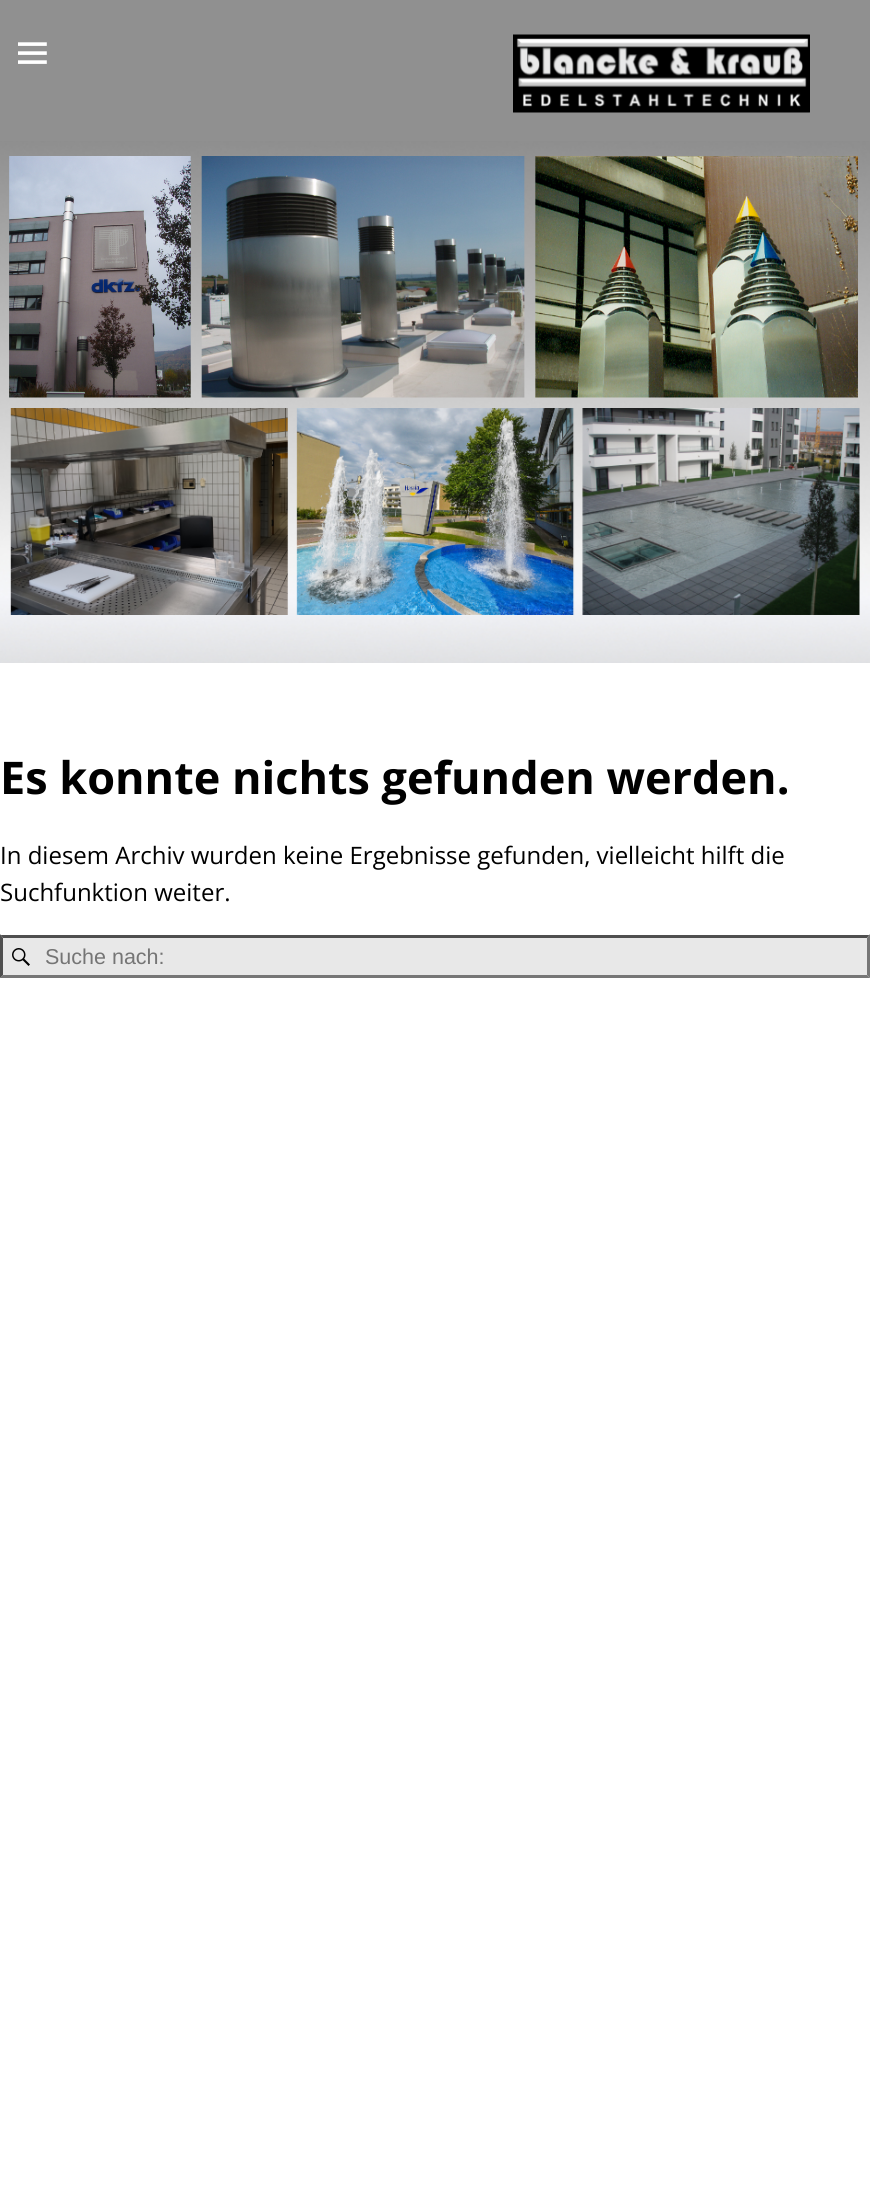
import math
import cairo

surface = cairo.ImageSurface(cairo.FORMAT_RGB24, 870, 2186)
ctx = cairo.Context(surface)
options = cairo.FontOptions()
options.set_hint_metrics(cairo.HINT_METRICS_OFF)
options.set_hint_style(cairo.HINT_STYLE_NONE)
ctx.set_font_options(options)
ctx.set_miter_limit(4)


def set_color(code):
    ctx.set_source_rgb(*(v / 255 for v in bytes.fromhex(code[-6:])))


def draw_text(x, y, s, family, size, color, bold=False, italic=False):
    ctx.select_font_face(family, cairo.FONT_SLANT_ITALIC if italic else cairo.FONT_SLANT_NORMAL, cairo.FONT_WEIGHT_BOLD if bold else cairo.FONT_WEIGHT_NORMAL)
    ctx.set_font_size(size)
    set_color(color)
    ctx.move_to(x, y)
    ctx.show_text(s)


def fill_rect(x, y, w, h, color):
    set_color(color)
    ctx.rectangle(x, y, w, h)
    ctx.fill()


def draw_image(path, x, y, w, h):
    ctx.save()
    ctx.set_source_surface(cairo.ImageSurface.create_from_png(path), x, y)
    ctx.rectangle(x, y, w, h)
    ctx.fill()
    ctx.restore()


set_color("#ffffff")
ctx.paint()
fill_rect(0, 0, 870, 141, "#909090")
draw_image("assets/img1.png", 18, 42, 29, 22)
draw_image("assets/img2.png", 513, 34, 297, 79)
draw_image("assets/img3.png", 0, 141, 870, 522)
draw_image("assets/img4.png", 9, 156, 849, 242)
draw_image("assets/img5.png", 10, 408, 850, 207)
draw_text(0, 794, "Es konnte nichts gefunden werden.", "Open Sans", 45, "#000000", bold=True)
draw_text(0, 864, "In diesem Archiv wurden keine Ergebnisse gefunden, vielleicht hilft die", "Open Sans", 24, "#000000")
draw_text(0, 901, "Suchfunktion weiter.", "Open Sans", 24, "#000000")
fill_rect(0, 935, 870, 43, "#e8e8e8")
draw_image("assets/img6.png", 12, 948, 18, 18)
ctx.save()
ctx.rectangle(0, 935, 870, 43)
ctx.clip()
set_color("#4f4f4f")
ctx.new_path()
ctx.move_to(0, 934)
ctx.line_to(870, 934)
ctx.line_to(867, 938)
ctx.line_to(3, 938)
ctx.close_path()
ctx.fill()
ctx.restore()
set_color("#767676")
ctx.new_path()
ctx.move_to(870, 934)
ctx.line_to(870, 978)
ctx.line_to(867, 975)
ctx.line_to(867, 938)
ctx.close_path()
ctx.fill()
ctx.new_path()
ctx.move_to(870, 978)
ctx.line_to(0, 978)
ctx.line_to(3, 975)
ctx.line_to(867, 975)
ctx.close_path()
ctx.fill()
set_color("#4f4f4f")
ctx.new_path()
ctx.move_to(0, 978)
ctx.line_to(0, 934)
ctx.line_to(3, 938)
ctx.line_to(3, 975)
ctx.close_path()
ctx.fill()
draw_text(45, 964, "Suche nach:", "Liberation Sans", 21.5, "#757575")
surface.write_to_png("output.png")
